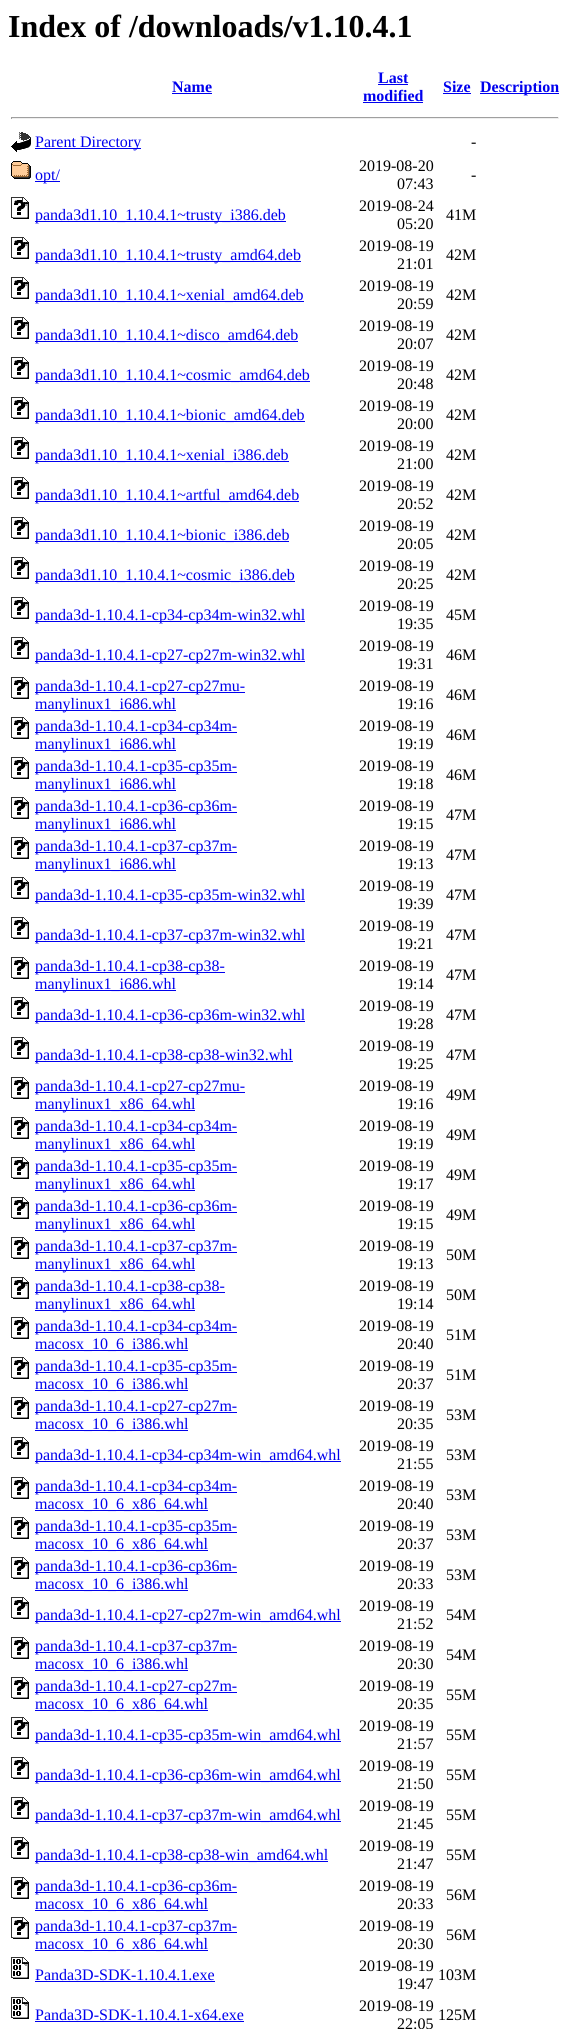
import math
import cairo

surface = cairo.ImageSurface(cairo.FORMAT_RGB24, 570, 2029)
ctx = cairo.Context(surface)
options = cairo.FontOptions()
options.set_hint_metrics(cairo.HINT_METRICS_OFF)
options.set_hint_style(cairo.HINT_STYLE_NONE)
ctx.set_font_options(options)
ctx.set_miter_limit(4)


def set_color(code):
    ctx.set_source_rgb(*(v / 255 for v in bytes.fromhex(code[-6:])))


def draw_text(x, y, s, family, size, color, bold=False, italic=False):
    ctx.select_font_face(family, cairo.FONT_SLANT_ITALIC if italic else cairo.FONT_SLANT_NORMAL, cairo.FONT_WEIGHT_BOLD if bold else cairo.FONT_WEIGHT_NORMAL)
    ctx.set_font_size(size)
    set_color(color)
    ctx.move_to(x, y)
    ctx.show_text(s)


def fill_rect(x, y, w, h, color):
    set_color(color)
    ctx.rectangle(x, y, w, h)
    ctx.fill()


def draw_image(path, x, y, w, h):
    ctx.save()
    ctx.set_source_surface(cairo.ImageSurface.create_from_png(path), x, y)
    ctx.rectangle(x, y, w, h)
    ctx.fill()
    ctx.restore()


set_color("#ffffff")
ctx.paint()
draw_text(8, 37, "Index of /downloads/v1.10.4.1", "Liberation Serif", 32, "#000000", bold=True)
draw_text(172, 92, "Name", "Liberation Serif", 16, "#0000ee", bold=True)
fill_rect(172, 93, 40, 1, "#0000ee")
draw_text(378, 83, "Last", "Liberation Serif", 16, "#0000ee", bold=True)
fill_rect(378, 84, 30, 1, "#0000ee")
draw_text(363, 101, "modified", "Liberation Serif", 16, "#0000ee", bold=True)
fill_rect(363, 102, 60, 1, "#0000ee")
draw_text(443, 92, "Size", "Liberation Serif", 16, "#0000ee", bold=True)
fill_rect(443, 93, 28, 1, "#0000ee")
fill_rect(480, 93, 79, 1, "#0000ee")
draw_text(480, 92, "Description", "Liberation Serif", 16, "#0000ee", bold=True)
fill_rect(11, 117, 548, 1, "#9f9f9f")
fill_rect(558, 117, 1, 2, "#eeeeee")
fill_rect(11, 118, 548, 1, "#eeeeee")
fill_rect(11, 117, 1, 2, "#9f9f9f")
draw_image("assets/img1.png", 11, 132, 20, 20)
fill_rect(35, 148, 106, 1, "#0000ee")
draw_text(35, 147, "Parent Directory", "Liberation Serif", 16, "#0000ee")
draw_text(471, 147, "-", "Liberation Serif", 16, "#000000")
draw_image("assets/img2.png", 11, 161, 20, 18)
fill_rect(35, 181, 25, 1, "#0000ee")
draw_text(35, 180, "opt/", "Liberation Serif", 16, "#0000ee")
draw_text(359, 171, "2019-08-20", "Liberation Serif", 16, "#000000")
draw_text(397, 189, "07:43", "Liberation Serif", 16, "#000000")
draw_text(471, 180, "-", "Liberation Serif", 16, "#000000")
draw_image("assets/img3.png", 11, 197, 18, 22)
fill_rect(35, 221, 251, 1, "#0000ee")
draw_text(35, 220, "panda3d1.10_1.10.4.1~trusty_i386.deb", "Liberation Serif", 16, "#0000ee")
draw_text(359, 211, "2019-08-24", "Liberation Serif", 16, "#000000")
draw_text(397, 229, "05:20", "Liberation Serif", 16, "#000000")
draw_text(446, 220, "41M", "Liberation Serif", 16, "#000000")
draw_image("assets/img3.png", 11, 237, 18, 22)
fill_rect(35, 261, 266, 1, "#0000ee")
draw_text(35, 260, "panda3d1.10_1.10.4.1~trusty_amd64.deb", "Liberation Serif", 16, "#0000ee")
draw_text(359, 251, "2019-08-19", "Liberation Serif", 16, "#000000")
draw_text(397, 269, "21:01", "Liberation Serif", 16, "#000000")
draw_text(446, 260, "42M", "Liberation Serif", 16, "#000000")
draw_image("assets/img3.png", 11, 277, 18, 22)
fill_rect(35, 301, 269, 1, "#0000ee")
draw_text(35, 300, "panda3d1.10_1.10.4.1~xenial_amd64.deb", "Liberation Serif", 16, "#0000ee")
draw_text(359, 291, "2019-08-19", "Liberation Serif", 16, "#000000")
draw_text(397, 309, "20:59", "Liberation Serif", 16, "#000000")
draw_text(446, 300, "42M", "Liberation Serif", 16, "#000000")
draw_image("assets/img3.png", 11, 317, 18, 22)
fill_rect(35, 341, 263, 1, "#0000ee")
draw_text(35, 340, "panda3d1.10_1.10.4.1~disco_amd64.deb", "Liberation Serif", 16, "#0000ee")
draw_text(359, 331, "2019-08-19", "Liberation Serif", 16, "#000000")
draw_text(397, 349, "20:07", "Liberation Serif", 16, "#000000")
draw_text(446, 340, "42M", "Liberation Serif", 16, "#000000")
draw_image("assets/img3.png", 11, 357, 18, 22)
fill_rect(35, 381, 275, 1, "#0000ee")
draw_text(35, 380, "panda3d1.10_1.10.4.1~cosmic_amd64.deb", "Liberation Serif", 16, "#0000ee")
draw_text(359, 371, "2019-08-19", "Liberation Serif", 16, "#000000")
draw_text(397, 389, "20:48", "Liberation Serif", 16, "#000000")
draw_text(446, 380, "42M", "Liberation Serif", 16, "#000000")
draw_image("assets/img3.png", 11, 397, 18, 22)
fill_rect(35, 421, 270, 1, "#0000ee")
draw_text(35, 420, "panda3d1.10_1.10.4.1~bionic_amd64.deb", "Liberation Serif", 16, "#0000ee")
draw_text(359, 411, "2019-08-19", "Liberation Serif", 16, "#000000")
draw_text(397, 429, "20:00", "Liberation Serif", 16, "#000000")
draw_text(446, 420, "42M", "Liberation Serif", 16, "#000000")
draw_image("assets/img3.png", 11, 437, 18, 22)
fill_rect(35, 461, 254, 1, "#0000ee")
draw_text(35, 460, "panda3d1.10_1.10.4.1~xenial_i386.deb", "Liberation Serif", 16, "#0000ee")
draw_text(359, 451, "2019-08-19", "Liberation Serif", 16, "#000000")
draw_text(397, 469, "21:00", "Liberation Serif", 16, "#000000")
draw_text(446, 460, "42M", "Liberation Serif", 16, "#000000")
draw_image("assets/img3.png", 11, 477, 18, 22)
fill_rect(35, 501, 264, 1, "#0000ee")
draw_text(35, 500, "panda3d1.10_1.10.4.1~artful_amd64.deb", "Liberation Serif", 16, "#0000ee")
draw_text(359, 491, "2019-08-19", "Liberation Serif", 16, "#000000")
draw_text(397, 509, "20:52", "Liberation Serif", 16, "#000000")
draw_text(446, 500, "42M", "Liberation Serif", 16, "#000000")
draw_image("assets/img3.png", 11, 517, 18, 22)
fill_rect(35, 541, 254, 1, "#0000ee")
draw_text(35, 540, "panda3d1.10_1.10.4.1~bionic_i386.deb", "Liberation Serif", 16, "#0000ee")
draw_text(359, 531, "2019-08-19", "Liberation Serif", 16, "#000000")
draw_text(397, 549, "20:05", "Liberation Serif", 16, "#000000")
draw_text(446, 540, "42M", "Liberation Serif", 16, "#000000")
draw_image("assets/img3.png", 11, 557, 18, 22)
fill_rect(35, 581, 260, 1, "#0000ee")
draw_text(35, 580, "panda3d1.10_1.10.4.1~cosmic_i386.deb", "Liberation Serif", 16, "#0000ee")
draw_text(359, 571, "2019-08-19", "Liberation Serif", 16, "#000000")
draw_text(397, 589, "20:25", "Liberation Serif", 16, "#000000")
draw_text(446, 580, "42M", "Liberation Serif", 16, "#000000")
draw_image("assets/img3.png", 11, 597, 18, 22)
fill_rect(35, 621, 270, 1, "#0000ee")
draw_text(35, 620, "panda3d-1.10.4.1-cp34-cp34m-win32.whl", "Liberation Serif", 16, "#0000ee")
draw_text(359, 611, "2019-08-19", "Liberation Serif", 16, "#000000")
draw_text(397, 629, "19:35", "Liberation Serif", 16, "#000000")
draw_text(446, 620, "45M", "Liberation Serif", 16, "#000000")
draw_image("assets/img3.png", 11, 637, 18, 22)
fill_rect(35, 661, 270, 1, "#0000ee")
draw_text(35, 660, "panda3d-1.10.4.1-cp27-cp27m-win32.whl", "Liberation Serif", 16, "#0000ee")
draw_text(359, 651, "2019-08-19", "Liberation Serif", 16, "#000000")
draw_text(397, 669, "19:31", "Liberation Serif", 16, "#000000")
draw_text(446, 660, "46M", "Liberation Serif", 16, "#000000")
draw_image("assets/img3.png", 11, 677, 18, 22)
fill_rect(35, 692, 210, 1, "#0000ee")
draw_text(35, 691, "panda3d-1.10.4.1-cp27-cp27mu-", "Liberation Serif", 16, "#0000ee")
fill_rect(35, 710, 141, 1, "#0000ee")
draw_text(35, 709, "manylinux1_i686.whl", "Liberation Serif", 16, "#0000ee")
draw_text(359, 691, "2019-08-19", "Liberation Serif", 16, "#000000")
draw_text(397, 709, "19:16", "Liberation Serif", 16, "#000000")
draw_text(446, 700, "46M", "Liberation Serif", 16, "#000000")
draw_image("assets/img3.png", 11, 717, 18, 22)
fill_rect(35, 732, 202, 1, "#0000ee")
draw_text(35, 731, "panda3d-1.10.4.1-cp34-cp34m-", "Liberation Serif", 16, "#0000ee")
fill_rect(35, 750, 141, 1, "#0000ee")
draw_text(35, 749, "manylinux1_i686.whl", "Liberation Serif", 16, "#0000ee")
draw_text(359, 731, "2019-08-19", "Liberation Serif", 16, "#000000")
draw_text(397, 749, "19:19", "Liberation Serif", 16, "#000000")
draw_text(446, 740, "46M", "Liberation Serif", 16, "#000000")
draw_image("assets/img3.png", 11, 757, 18, 22)
fill_rect(35, 772, 202, 1, "#0000ee")
draw_text(35, 771, "panda3d-1.10.4.1-cp35-cp35m-", "Liberation Serif", 16, "#0000ee")
fill_rect(35, 790, 141, 1, "#0000ee")
draw_text(35, 789, "manylinux1_i686.whl", "Liberation Serif", 16, "#0000ee")
draw_text(359, 771, "2019-08-19", "Liberation Serif", 16, "#000000")
draw_text(397, 789, "19:18", "Liberation Serif", 16, "#000000")
draw_text(446, 780, "46M", "Liberation Serif", 16, "#000000")
draw_image("assets/img3.png", 11, 797, 18, 22)
fill_rect(35, 812, 202, 1, "#0000ee")
draw_text(35, 811, "panda3d-1.10.4.1-cp36-cp36m-", "Liberation Serif", 16, "#0000ee")
fill_rect(35, 830, 141, 1, "#0000ee")
draw_text(35, 829, "manylinux1_i686.whl", "Liberation Serif", 16, "#0000ee")
draw_text(359, 811, "2019-08-19", "Liberation Serif", 16, "#000000")
draw_text(397, 829, "19:15", "Liberation Serif", 16, "#000000")
draw_text(446, 820, "47M", "Liberation Serif", 16, "#000000")
draw_image("assets/img3.png", 11, 837, 18, 22)
fill_rect(35, 852, 202, 1, "#0000ee")
draw_text(35, 851, "panda3d-1.10.4.1-cp37-cp37m-", "Liberation Serif", 16, "#0000ee")
fill_rect(35, 870, 141, 1, "#0000ee")
draw_text(35, 869, "manylinux1_i686.whl", "Liberation Serif", 16, "#0000ee")
draw_text(359, 851, "2019-08-19", "Liberation Serif", 16, "#000000")
draw_text(397, 869, "19:13", "Liberation Serif", 16, "#000000")
draw_text(446, 860, "47M", "Liberation Serif", 16, "#000000")
draw_image("assets/img3.png", 11, 877, 18, 22)
fill_rect(35, 901, 270, 1, "#0000ee")
draw_text(35, 900, "panda3d-1.10.4.1-cp35-cp35m-win32.whl", "Liberation Serif", 16, "#0000ee")
draw_text(359, 891, "2019-08-19", "Liberation Serif", 16, "#000000")
draw_text(397, 909, "19:39", "Liberation Serif", 16, "#000000")
draw_text(446, 900, "47M", "Liberation Serif", 16, "#000000")
draw_image("assets/img3.png", 11, 917, 18, 22)
fill_rect(35, 941, 270, 1, "#0000ee")
draw_text(35, 940, "panda3d-1.10.4.1-cp37-cp37m-win32.whl", "Liberation Serif", 16, "#0000ee")
draw_text(359, 931, "2019-08-19", "Liberation Serif", 16, "#000000")
draw_text(397, 949, "19:21", "Liberation Serif", 16, "#000000")
draw_text(446, 940, "47M", "Liberation Serif", 16, "#000000")
draw_image("assets/img3.png", 11, 957, 18, 22)
fill_rect(35, 972, 190, 1, "#0000ee")
draw_text(35, 971, "panda3d-1.10.4.1-cp38-cp38-", "Liberation Serif", 16, "#0000ee")
fill_rect(35, 990, 141, 1, "#0000ee")
draw_text(35, 989, "manylinux1_i686.whl", "Liberation Serif", 16, "#0000ee")
draw_text(359, 971, "2019-08-19", "Liberation Serif", 16, "#000000")
draw_text(397, 989, "19:14", "Liberation Serif", 16, "#000000")
draw_text(446, 980, "47M", "Liberation Serif", 16, "#000000")
draw_image("assets/img3.png", 11, 997, 18, 22)
fill_rect(35, 1021, 270, 1, "#0000ee")
draw_text(35, 1020, "panda3d-1.10.4.1-cp36-cp36m-win32.whl", "Liberation Serif", 16, "#0000ee")
draw_text(359, 1011, "2019-08-19", "Liberation Serif", 16, "#000000")
draw_text(397, 1029, "19:28", "Liberation Serif", 16, "#000000")
draw_text(446, 1020, "47M", "Liberation Serif", 16, "#000000")
draw_image("assets/img3.png", 11, 1037, 18, 22)
fill_rect(35, 1061, 258, 1, "#0000ee")
draw_text(35, 1060, "panda3d-1.10.4.1-cp38-cp38-win32.whl", "Liberation Serif", 16, "#0000ee")
draw_text(359, 1051, "2019-08-19", "Liberation Serif", 16, "#000000")
draw_text(397, 1069, "19:25", "Liberation Serif", 16, "#000000")
draw_text(446, 1060, "47M", "Liberation Serif", 16, "#000000")
draw_image("assets/img3.png", 11, 1077, 18, 22)
fill_rect(35, 1092, 210, 1, "#0000ee")
draw_text(35, 1091, "panda3d-1.10.4.1-cp27-cp27mu-", "Liberation Serif", 16, "#0000ee")
fill_rect(35, 1110, 160, 1, "#0000ee")
draw_text(35, 1109, "manylinux1_x86_64.whl", "Liberation Serif", 16, "#0000ee")
draw_text(359, 1091, "2019-08-19", "Liberation Serif", 16, "#000000")
draw_text(397, 1109, "19:16", "Liberation Serif", 16, "#000000")
draw_text(446, 1100, "49M", "Liberation Serif", 16, "#000000")
draw_image("assets/img3.png", 11, 1117, 18, 22)
fill_rect(35, 1132, 202, 1, "#0000ee")
draw_text(35, 1131, "panda3d-1.10.4.1-cp34-cp34m-", "Liberation Serif", 16, "#0000ee")
fill_rect(35, 1150, 160, 1, "#0000ee")
draw_text(35, 1149, "manylinux1_x86_64.whl", "Liberation Serif", 16, "#0000ee")
draw_text(359, 1131, "2019-08-19", "Liberation Serif", 16, "#000000")
draw_text(397, 1149, "19:19", "Liberation Serif", 16, "#000000")
draw_text(446, 1140, "49M", "Liberation Serif", 16, "#000000")
draw_image("assets/img3.png", 11, 1157, 18, 22)
fill_rect(35, 1172, 202, 1, "#0000ee")
draw_text(35, 1171, "panda3d-1.10.4.1-cp35-cp35m-", "Liberation Serif", 16, "#0000ee")
fill_rect(35, 1190, 160, 1, "#0000ee")
draw_text(35, 1189, "manylinux1_x86_64.whl", "Liberation Serif", 16, "#0000ee")
draw_text(359, 1171, "2019-08-19", "Liberation Serif", 16, "#000000")
draw_text(397, 1189, "19:17", "Liberation Serif", 16, "#000000")
draw_text(446, 1180, "49M", "Liberation Serif", 16, "#000000")
draw_image("assets/img3.png", 11, 1197, 18, 22)
fill_rect(35, 1212, 202, 1, "#0000ee")
draw_text(35, 1211, "panda3d-1.10.4.1-cp36-cp36m-", "Liberation Serif", 16, "#0000ee")
fill_rect(35, 1230, 160, 1, "#0000ee")
draw_text(35, 1229, "manylinux1_x86_64.whl", "Liberation Serif", 16, "#0000ee")
draw_text(359, 1211, "2019-08-19", "Liberation Serif", 16, "#000000")
draw_text(397, 1229, "19:15", "Liberation Serif", 16, "#000000")
draw_text(446, 1220, "49M", "Liberation Serif", 16, "#000000")
draw_image("assets/img3.png", 11, 1237, 18, 22)
fill_rect(35, 1252, 202, 1, "#0000ee")
draw_text(35, 1251, "panda3d-1.10.4.1-cp37-cp37m-", "Liberation Serif", 16, "#0000ee")
fill_rect(35, 1270, 160, 1, "#0000ee")
draw_text(35, 1269, "manylinux1_x86_64.whl", "Liberation Serif", 16, "#0000ee")
draw_text(359, 1251, "2019-08-19", "Liberation Serif", 16, "#000000")
draw_text(397, 1269, "19:13", "Liberation Serif", 16, "#000000")
draw_text(446, 1260, "50M", "Liberation Serif", 16, "#000000")
draw_image("assets/img3.png", 11, 1277, 18, 22)
fill_rect(35, 1292, 190, 1, "#0000ee")
draw_text(35, 1291, "panda3d-1.10.4.1-cp38-cp38-", "Liberation Serif", 16, "#0000ee")
fill_rect(35, 1310, 160, 1, "#0000ee")
draw_text(35, 1309, "manylinux1_x86_64.whl", "Liberation Serif", 16, "#0000ee")
draw_text(359, 1291, "2019-08-19", "Liberation Serif", 16, "#000000")
draw_text(397, 1309, "19:14", "Liberation Serif", 16, "#000000")
draw_text(446, 1300, "50M", "Liberation Serif", 16, "#000000")
draw_image("assets/img3.png", 11, 1317, 18, 22)
fill_rect(35, 1332, 202, 1, "#0000ee")
draw_text(35, 1331, "panda3d-1.10.4.1-cp34-cp34m-", "Liberation Serif", 16, "#0000ee")
fill_rect(35, 1350, 153, 1, "#0000ee")
draw_text(35, 1349, "macosx_10_6_i386.whl", "Liberation Serif", 16, "#0000ee")
draw_text(359, 1331, "2019-08-19", "Liberation Serif", 16, "#000000")
draw_text(397, 1349, "20:40", "Liberation Serif", 16, "#000000")
draw_text(446, 1340, "51M", "Liberation Serif", 16, "#000000")
draw_image("assets/img3.png", 11, 1357, 18, 22)
fill_rect(35, 1372, 202, 1, "#0000ee")
draw_text(35, 1371, "panda3d-1.10.4.1-cp35-cp35m-", "Liberation Serif", 16, "#0000ee")
fill_rect(35, 1390, 153, 1, "#0000ee")
draw_text(35, 1389, "macosx_10_6_i386.whl", "Liberation Serif", 16, "#0000ee")
draw_text(359, 1371, "2019-08-19", "Liberation Serif", 16, "#000000")
draw_text(397, 1389, "20:37", "Liberation Serif", 16, "#000000")
draw_text(446, 1380, "51M", "Liberation Serif", 16, "#000000")
draw_image("assets/img3.png", 11, 1397, 18, 22)
fill_rect(35, 1412, 202, 1, "#0000ee")
draw_text(35, 1411, "panda3d-1.10.4.1-cp27-cp27m-", "Liberation Serif", 16, "#0000ee")
fill_rect(35, 1430, 153, 1, "#0000ee")
draw_text(35, 1429, "macosx_10_6_i386.whl", "Liberation Serif", 16, "#0000ee")
draw_text(359, 1411, "2019-08-19", "Liberation Serif", 16, "#000000")
draw_text(397, 1429, "20:35", "Liberation Serif", 16, "#000000")
draw_text(446, 1420, "53M", "Liberation Serif", 16, "#000000")
draw_image("assets/img3.png", 11, 1437, 18, 22)
fill_rect(35, 1461, 306, 1, "#0000ee")
draw_text(35, 1460, "panda3d-1.10.4.1-cp34-cp34m-win_amd64.whl", "Liberation Serif", 16, "#0000ee")
draw_text(359, 1451, "2019-08-19", "Liberation Serif", 16, "#000000")
draw_text(397, 1469, "21:55", "Liberation Serif", 16, "#000000")
draw_text(446, 1460, "53M", "Liberation Serif", 16, "#000000")
draw_image("assets/img3.png", 11, 1477, 18, 22)
fill_rect(35, 1492, 202, 1, "#0000ee")
draw_text(35, 1491, "panda3d-1.10.4.1-cp34-cp34m-", "Liberation Serif", 16, "#0000ee")
fill_rect(35, 1510, 173, 1, "#0000ee")
draw_text(35, 1509, "macosx_10_6_x86_64.whl", "Liberation Serif", 16, "#0000ee")
draw_text(359, 1491, "2019-08-19", "Liberation Serif", 16, "#000000")
draw_text(397, 1509, "20:40", "Liberation Serif", 16, "#000000")
draw_text(446, 1500, "53M", "Liberation Serif", 16, "#000000")
draw_image("assets/img3.png", 11, 1517, 18, 22)
fill_rect(35, 1532, 202, 1, "#0000ee")
draw_text(35, 1531, "panda3d-1.10.4.1-cp35-cp35m-", "Liberation Serif", 16, "#0000ee")
fill_rect(35, 1550, 173, 1, "#0000ee")
draw_text(35, 1549, "macosx_10_6_x86_64.whl", "Liberation Serif", 16, "#0000ee")
draw_text(359, 1531, "2019-08-19", "Liberation Serif", 16, "#000000")
draw_text(397, 1549, "20:37", "Liberation Serif", 16, "#000000")
draw_text(446, 1540, "53M", "Liberation Serif", 16, "#000000")
draw_image("assets/img3.png", 11, 1557, 18, 22)
fill_rect(35, 1572, 202, 1, "#0000ee")
draw_text(35, 1571, "panda3d-1.10.4.1-cp36-cp36m-", "Liberation Serif", 16, "#0000ee")
fill_rect(35, 1590, 153, 1, "#0000ee")
draw_text(35, 1589, "macosx_10_6_i386.whl", "Liberation Serif", 16, "#0000ee")
draw_text(359, 1571, "2019-08-19", "Liberation Serif", 16, "#000000")
draw_text(397, 1589, "20:33", "Liberation Serif", 16, "#000000")
draw_text(446, 1580, "53M", "Liberation Serif", 16, "#000000")
draw_image("assets/img3.png", 11, 1597, 18, 22)
fill_rect(35, 1621, 306, 1, "#0000ee")
draw_text(35, 1620, "panda3d-1.10.4.1-cp27-cp27m-win_amd64.whl", "Liberation Serif", 16, "#0000ee")
draw_text(359, 1611, "2019-08-19", "Liberation Serif", 16, "#000000")
draw_text(397, 1629, "21:52", "Liberation Serif", 16, "#000000")
draw_text(446, 1620, "54M", "Liberation Serif", 16, "#000000")
draw_image("assets/img3.png", 11, 1637, 18, 22)
fill_rect(35, 1652, 202, 1, "#0000ee")
draw_text(35, 1651, "panda3d-1.10.4.1-cp37-cp37m-", "Liberation Serif", 16, "#0000ee")
fill_rect(35, 1670, 153, 1, "#0000ee")
draw_text(35, 1669, "macosx_10_6_i386.whl", "Liberation Serif", 16, "#0000ee")
draw_text(359, 1651, "2019-08-19", "Liberation Serif", 16, "#000000")
draw_text(397, 1669, "20:30", "Liberation Serif", 16, "#000000")
draw_text(446, 1660, "54M", "Liberation Serif", 16, "#000000")
draw_image("assets/img3.png", 11, 1677, 18, 22)
fill_rect(35, 1692, 202, 1, "#0000ee")
draw_text(35, 1691, "panda3d-1.10.4.1-cp27-cp27m-", "Liberation Serif", 16, "#0000ee")
fill_rect(35, 1710, 173, 1, "#0000ee")
draw_text(35, 1709, "macosx_10_6_x86_64.whl", "Liberation Serif", 16, "#0000ee")
draw_text(359, 1691, "2019-08-19", "Liberation Serif", 16, "#000000")
draw_text(397, 1709, "20:35", "Liberation Serif", 16, "#000000")
draw_text(446, 1700, "55M", "Liberation Serif", 16, "#000000")
draw_image("assets/img3.png", 11, 1717, 18, 22)
fill_rect(35, 1741, 306, 1, "#0000ee")
draw_text(35, 1740, "panda3d-1.10.4.1-cp35-cp35m-win_amd64.whl", "Liberation Serif", 16, "#0000ee")
draw_text(359, 1731, "2019-08-19", "Liberation Serif", 16, "#000000")
draw_text(397, 1749, "21:57", "Liberation Serif", 16, "#000000")
draw_text(446, 1740, "55M", "Liberation Serif", 16, "#000000")
draw_image("assets/img3.png", 11, 1757, 18, 22)
fill_rect(35, 1781, 306, 1, "#0000ee")
draw_text(35, 1780, "panda3d-1.10.4.1-cp36-cp36m-win_amd64.whl", "Liberation Serif", 16, "#0000ee")
draw_text(359, 1771, "2019-08-19", "Liberation Serif", 16, "#000000")
draw_text(397, 1789, "21:50", "Liberation Serif", 16, "#000000")
draw_text(446, 1780, "55M", "Liberation Serif", 16, "#000000")
draw_image("assets/img3.png", 11, 1797, 18, 22)
fill_rect(35, 1821, 306, 1, "#0000ee")
draw_text(35, 1820, "panda3d-1.10.4.1-cp37-cp37m-win_amd64.whl", "Liberation Serif", 16, "#0000ee")
draw_text(359, 1811, "2019-08-19", "Liberation Serif", 16, "#000000")
draw_text(397, 1829, "21:45", "Liberation Serif", 16, "#000000")
draw_text(446, 1820, "55M", "Liberation Serif", 16, "#000000")
draw_image("assets/img3.png", 11, 1837, 18, 22)
fill_rect(35, 1861, 293, 1, "#0000ee")
draw_text(35, 1860, "panda3d-1.10.4.1-cp38-cp38-win_amd64.whl", "Liberation Serif", 16, "#0000ee")
draw_text(359, 1851, "2019-08-19", "Liberation Serif", 16, "#000000")
draw_text(397, 1869, "21:47", "Liberation Serif", 16, "#000000")
draw_text(446, 1860, "55M", "Liberation Serif", 16, "#000000")
draw_image("assets/img3.png", 11, 1877, 18, 22)
fill_rect(35, 1892, 202, 1, "#0000ee")
draw_text(35, 1891, "panda3d-1.10.4.1-cp36-cp36m-", "Liberation Serif", 16, "#0000ee")
fill_rect(35, 1910, 173, 1, "#0000ee")
draw_text(35, 1909, "macosx_10_6_x86_64.whl", "Liberation Serif", 16, "#0000ee")
draw_text(359, 1891, "2019-08-19", "Liberation Serif", 16, "#000000")
draw_text(397, 1909, "20:33", "Liberation Serif", 16, "#000000")
draw_text(446, 1900, "56M", "Liberation Serif", 16, "#000000")
draw_image("assets/img3.png", 11, 1917, 18, 22)
fill_rect(35, 1932, 202, 1, "#0000ee")
draw_text(35, 1931, "panda3d-1.10.4.1-cp37-cp37m-", "Liberation Serif", 16, "#0000ee")
fill_rect(35, 1950, 173, 1, "#0000ee")
draw_text(35, 1949, "macosx_10_6_x86_64.whl", "Liberation Serif", 16, "#0000ee")
draw_text(359, 1931, "2019-08-19", "Liberation Serif", 16, "#000000")
draw_text(397, 1949, "20:30", "Liberation Serif", 16, "#000000")
draw_text(446, 1940, "56M", "Liberation Serif", 16, "#000000")
draw_image("assets/img4.png", 11, 1957, 18, 22)
draw_text(35, 1980, "Panda3D-SDK-1.10.4.1.exe", "Liberation Serif", 16, "#0000ee")
fill_rect(35, 1981, 180, 1, "#0000ee")
draw_text(359, 1971, "2019-08-19", "Liberation Serif", 16, "#000000")
draw_text(397, 1989, "19:47", "Liberation Serif", 16, "#000000")
draw_text(438, 1980, "103M", "Liberation Serif", 16, "#000000")
draw_image("assets/img4.png", 11, 1997, 18, 22)
draw_text(35, 2020, "Panda3D-SDK-1.10.4.1-x64.exe", "Liberation Serif", 16, "#0000ee")
fill_rect(35, 2021, 209, 1, "#0000ee")
draw_text(359, 2011, "2019-08-19", "Liberation Serif", 16, "#000000")
draw_text(397, 2029, "22:05", "Liberation Serif", 16, "#000000")
draw_text(438, 2020, "125M", "Liberation Serif", 16, "#000000")
surface.write_to_png("output.png")
